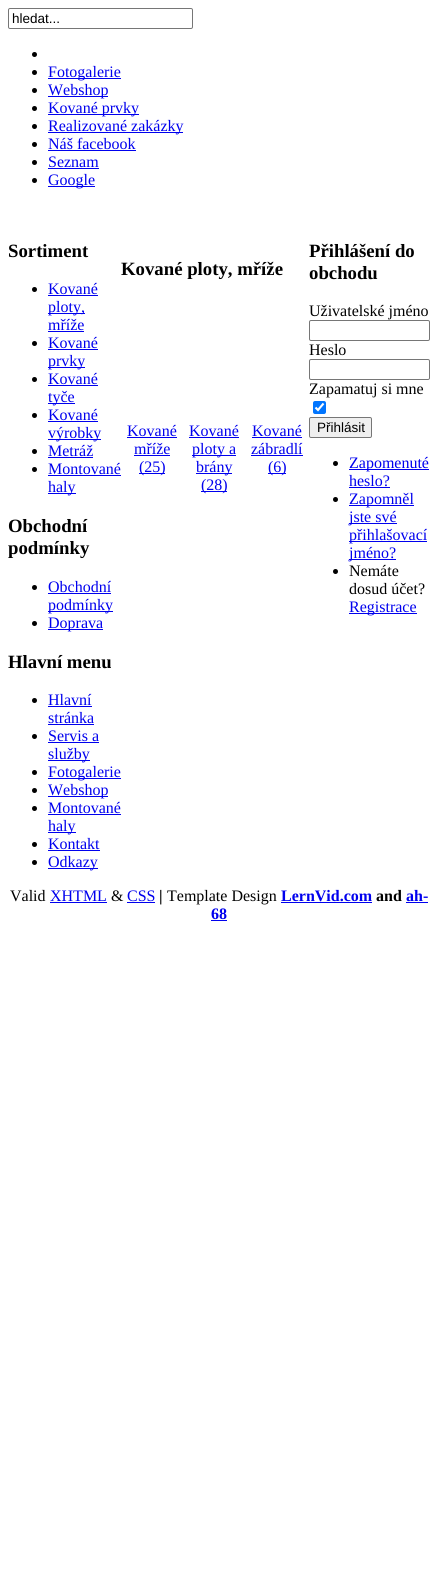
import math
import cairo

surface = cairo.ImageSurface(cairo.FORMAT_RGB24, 438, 1588)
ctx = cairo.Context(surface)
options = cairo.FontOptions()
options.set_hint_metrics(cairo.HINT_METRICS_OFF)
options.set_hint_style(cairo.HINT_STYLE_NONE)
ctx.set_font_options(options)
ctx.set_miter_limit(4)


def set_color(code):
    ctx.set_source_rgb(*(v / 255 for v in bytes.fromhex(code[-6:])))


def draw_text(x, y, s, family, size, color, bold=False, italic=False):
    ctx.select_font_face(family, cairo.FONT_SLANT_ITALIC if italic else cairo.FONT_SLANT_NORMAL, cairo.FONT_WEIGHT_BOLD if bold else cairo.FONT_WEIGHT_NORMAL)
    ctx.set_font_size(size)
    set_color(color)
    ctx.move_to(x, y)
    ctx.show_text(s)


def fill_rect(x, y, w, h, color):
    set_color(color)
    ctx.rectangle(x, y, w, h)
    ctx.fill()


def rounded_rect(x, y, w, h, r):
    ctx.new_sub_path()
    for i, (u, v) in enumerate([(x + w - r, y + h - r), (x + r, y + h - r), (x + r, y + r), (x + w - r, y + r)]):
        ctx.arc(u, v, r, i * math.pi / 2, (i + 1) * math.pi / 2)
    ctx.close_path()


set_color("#ffffff")
ctx.paint()
rounded_rect(8.5, 8.5, 184, 20, 1.5)
set_color("#767676")
ctx.set_line_width(1)
ctx.stroke()
draw_text(12, 23, "hledat...", "Liberation Sans", 13.5, "#000000")
ctx.new_path()
ctx.arc(34.5, 54.5, 2.5, 0, 2 * math.pi)
ctx.fill()
ctx.arc(34.5, 72.5, 2.5, 0, 2 * math.pi)
ctx.fill()
fill_rect(48, 78, 73, 1, "#0000ee")
draw_text(48, 77, "Fotogalerie", "Liberation Serif", 16, "#0000ee")
set_color("#000000")
ctx.new_path()
ctx.arc(34.5, 90.5, 2.5, 0, 2 * math.pi)
ctx.fill()
fill_rect(48, 96, 60, 1, "#0000ee")
draw_text(48, 95, "Webshop", "Liberation Serif", 16, "#0000ee")
set_color("#000000")
ctx.new_path()
ctx.arc(34.5, 108.5, 2.5, 0, 2 * math.pi)
ctx.fill()
fill_rect(48, 114, 91, 1, "#0000ee")
draw_text(48, 113, "Kované prvky", "Liberation Serif", 16, "#0000ee")
set_color("#000000")
ctx.new_path()
ctx.arc(34.5, 126.5, 2.5, 0, 2 * math.pi)
ctx.fill()
fill_rect(48, 132, 135, 1, "#0000ee")
draw_text(48, 131, "Realizované zakázky", "Liberation Serif", 16, "#0000ee")
set_color("#000000")
ctx.new_path()
ctx.arc(34.5, 144.5, 2.5, 0, 2 * math.pi)
ctx.fill()
draw_text(48, 149, "Náš facebook", "Liberation Serif", 16, "#0000ee")
fill_rect(48, 150, 88, 1, "#0000ee")
set_color("#000000")
ctx.new_path()
ctx.arc(34.5, 162.5, 2.5, 0, 2 * math.pi)
ctx.fill()
draw_text(48, 167, "Seznam", "Liberation Serif", 16, "#0000ee")
fill_rect(48, 168, 51, 1, "#0000ee")
set_color("#000000")
ctx.new_path()
ctx.arc(34.5, 180.5, 2.5, 0, 2 * math.pi)
ctx.fill()
fill_rect(48, 186, 47, 1, "#0000ee")
draw_text(48, 185, "Google", "Liberation Serif", 16, "#0000ee")
draw_text(8, 257, "Sortiment", "Liberation Serif", 18.75, "#000000", bold=True)
ctx.new_path()
ctx.arc(34.5, 289.5, 2.5, 0, 2 * math.pi)
ctx.fill()
draw_text(48, 294, "Kované", "Liberation Serif", 16, "#0000ee")
fill_rect(48, 295, 50, 1, "#0000ee")
fill_rect(48, 313, 37, 1, "#0000ee")
draw_text(48, 312, "ploty,", "Liberation Serif", 16, "#0000ee")
draw_text(48, 330, "mříže", "Liberation Serif", 16, "#0000ee")
fill_rect(48, 331, 36, 1, "#0000ee")
set_color("#000000")
ctx.new_path()
ctx.arc(34.5, 343.5, 2.5, 0, 2 * math.pi)
ctx.fill()
draw_text(48, 348, "Kované", "Liberation Serif", 16, "#0000ee")
fill_rect(48, 349, 50, 1, "#0000ee")
fill_rect(48, 367, 37, 1, "#0000ee")
draw_text(48, 366, "prvky", "Liberation Serif", 16, "#0000ee")
set_color("#000000")
ctx.new_path()
ctx.arc(34.5, 379.5, 2.5, 0, 2 * math.pi)
ctx.fill()
draw_text(48, 384, "Kované", "Liberation Serif", 16, "#0000ee")
fill_rect(48, 385, 50, 1, "#0000ee")
fill_rect(48, 403, 27, 1, "#0000ee")
draw_text(48, 402, "tyče", "Liberation Serif", 16, "#0000ee")
set_color("#000000")
ctx.new_path()
ctx.arc(34.5, 415.5, 2.5, 0, 2 * math.pi)
ctx.fill()
draw_text(48, 420, "Kované", "Liberation Serif", 16, "#0000ee")
fill_rect(48, 421, 50, 1, "#0000ee")
fill_rect(48, 439, 53, 1, "#0000ee")
draw_text(48, 438, "výrobky", "Liberation Serif", 16, "#0000ee")
set_color("#000000")
ctx.new_path()
ctx.arc(34.5, 451.5, 2.5, 0, 2 * math.pi)
ctx.fill()
draw_text(48, 456, "Metráž", "Liberation Serif", 16, "#0000ee")
fill_rect(48, 457, 45, 1, "#0000ee")
set_color("#000000")
ctx.new_path()
ctx.arc(34.5, 469.5, 2.5, 0, 2 * math.pi)
ctx.fill()
draw_text(48, 474, "Montované", "Liberation Serif", 16, "#0000ee")
fill_rect(48, 475, 73, 1, "#0000ee")
fill_rect(48, 493, 28, 1, "#0000ee")
draw_text(48, 492, "haly", "Liberation Serif", 16, "#0000ee")
draw_text(8, 532, "Obchodní", "Liberation Serif", 18.75, "#000000", bold=True)
draw_text(8, 554, "podmínky", "Liberation Serif", 18.75, "#000000", bold=True)
ctx.new_path()
ctx.arc(34.5, 587.5, 2.5, 0, 2 * math.pi)
ctx.fill()
draw_text(48, 592, "Obchodní", "Liberation Serif", 16, "#0000ee")
fill_rect(48, 593, 63, 1, "#0000ee")
fill_rect(48, 611, 65, 1, "#0000ee")
draw_text(48, 610, "podmínky", "Liberation Serif", 16, "#0000ee")
set_color("#000000")
ctx.new_path()
ctx.arc(34.5, 623.5, 2.5, 0, 2 * math.pi)
ctx.fill()
fill_rect(48, 629, 55, 1, "#0000ee")
draw_text(48, 628, "Doprava", "Liberation Serif", 16, "#0000ee")
draw_text(8, 668, "Hlavní menu", "Liberation Serif", 18.75, "#000000", bold=True)
ctx.new_path()
ctx.arc(34.5, 700.5, 2.5, 0, 2 * math.pi)
ctx.fill()
draw_text(48, 705, "Hlavní", "Liberation Serif", 16, "#0000ee")
fill_rect(48, 706, 44, 1, "#0000ee")
draw_text(48, 723, "stránka", "Liberation Serif", 16, "#0000ee")
fill_rect(48, 724, 46, 1, "#0000ee")
set_color("#000000")
ctx.new_path()
ctx.arc(34.5, 736.5, 2.5, 0, 2 * math.pi)
ctx.fill()
draw_text(48, 741, "Servis a", "Liberation Serif", 16, "#0000ee")
fill_rect(48, 742, 51, 1, "#0000ee")
fill_rect(48, 760, 42, 1, "#0000ee")
draw_text(48, 759, "služby", "Liberation Serif", 16, "#0000ee")
set_color("#000000")
ctx.new_path()
ctx.arc(34.5, 772.5, 2.5, 0, 2 * math.pi)
ctx.fill()
fill_rect(48, 778, 73, 1, "#0000ee")
draw_text(48, 777, "Fotogalerie", "Liberation Serif", 16, "#0000ee")
set_color("#000000")
ctx.new_path()
ctx.arc(34.5, 790.5, 2.5, 0, 2 * math.pi)
ctx.fill()
fill_rect(48, 796, 60, 1, "#0000ee")
draw_text(48, 795, "Webshop", "Liberation Serif", 16, "#0000ee")
set_color("#000000")
ctx.new_path()
ctx.arc(34.5, 808.5, 2.5, 0, 2 * math.pi)
ctx.fill()
draw_text(48, 813, "Montované", "Liberation Serif", 16, "#0000ee")
fill_rect(48, 814, 73, 1, "#0000ee")
fill_rect(48, 832, 28, 1, "#0000ee")
draw_text(48, 831, "haly", "Liberation Serif", 16, "#0000ee")
set_color("#000000")
ctx.new_path()
ctx.arc(34.5, 844.5, 2.5, 0, 2 * math.pi)
ctx.fill()
draw_text(48, 849, "Kontakt", "Liberation Serif", 16, "#0000ee")
fill_rect(48, 850, 52, 1, "#0000ee")
set_color("#000000")
ctx.new_path()
ctx.arc(34.5, 862.5, 2.5, 0, 2 * math.pi)
ctx.fill()
fill_rect(48, 868, 50, 1, "#0000ee")
draw_text(48, 867, "Odkazy", "Liberation Serif", 16, "#0000ee")
draw_text(121, 275, "Kované ploty, mříže", "Liberation Serif", 18.75, "#000000", bold=True)
draw_text(127, 436, "Kované", "Liberation Serif", 16, "#0000ee")
fill_rect(127, 437, 50, 1, "#0000ee")
draw_text(134, 454, "mříže", "Liberation Serif", 16, "#0000ee")
fill_rect(134, 455, 36, 1, "#0000ee")
fill_rect(139, 473, 26, 1, "#0000ee")
draw_text(139, 472, "(25)", "Liberation Serif", 16, "#0000ee")
draw_text(189, 436, "Kované", "Liberation Serif", 16, "#0000ee")
fill_rect(189, 437, 50, 1, "#0000ee")
fill_rect(192, 455, 44, 1, "#0000ee")
draw_text(192, 454, "ploty a", "Liberation Serif", 16, "#0000ee")
fill_rect(196, 473, 36, 1, "#0000ee")
draw_text(196, 472, "brány", "Liberation Serif", 16, "#0000ee")
fill_rect(201, 491, 26, 1, "#0000ee")
draw_text(201, 490, "(28)", "Liberation Serif", 16, "#0000ee")
draw_text(252, 436, "Kované", "Liberation Serif", 16, "#0000ee")
fill_rect(252, 437, 50, 1, "#0000ee")
draw_text(251, 454, "zábradlí", "Liberation Serif", 16, "#0000ee")
fill_rect(251, 455, 52, 1, "#0000ee")
fill_rect(268, 473, 18, 1, "#0000ee")
draw_text(268, 472, "(6)", "Liberation Serif", 16, "#0000ee")
draw_text(309, 257, "Přihlášení do", "Liberation Serif", 18.75, "#000000", bold=True)
draw_text(309, 279, "obchodu", "Liberation Serif", 18.75, "#000000", bold=True)
draw_text(309, 316, "Uživatelské jméno", "Liberation Serif", 16, "#000000")
rounded_rect(309.5, 320.5, 120, 20, 1.5)
set_color("#767676")
ctx.stroke()
draw_text(309, 355, "Heslo", "Liberation Serif", 16, "#000000")
rounded_rect(309.5, 359.5, 120, 20, 1.5)
set_color("#767676")
ctx.stroke()
draw_text(309, 394, "Zapamatuj si mne", "Liberation Serif", 16, "#000000")
set_color("#0075ff")
rounded_rect(313, 401, 13, 13, 2)
ctx.fill()
ctx.new_path()
ctx.move_to(315.5, 407.5)
ctx.line_to(318, 410)
ctx.line_to(323.5, 403.5)
set_color("#ffffff")
ctx.set_line_width(2.1)
ctx.stroke()
set_color("#efefef")
rounded_rect(309.5, 417.5, 62, 20, 1.5)
ctx.fill_preserve()
set_color("#767676")
ctx.set_line_width(1)
ctx.stroke()
draw_text(317, 432, "Přihlásit", "Liberation Sans", 13.5, "#000000")
ctx.new_path()
ctx.arc(335.5, 463.5, 2.5, 0, 2 * math.pi)
ctx.fill()
fill_rect(349, 469, 80, 1, "#0000ee")
draw_text(349, 468, "Zapomenuté", "Liberation Serif", 16, "#0000ee")
draw_text(349, 486, "heslo?", "Liberation Serif", 16, "#0000ee")
fill_rect(349, 487, 41, 1, "#0000ee")
set_color("#000000")
ctx.new_path()
ctx.arc(335.5, 499.5, 2.5, 0, 2 * math.pi)
ctx.fill()
fill_rect(349, 505, 65, 1, "#0000ee")
draw_text(349, 504, "Zapomněl", "Liberation Serif", 16, "#0000ee")
fill_rect(349, 523, 48, 1, "#0000ee")
draw_text(349, 522, "jste své", "Liberation Serif", 16, "#0000ee")
fill_rect(349, 541, 78, 1, "#0000ee")
draw_text(349, 540, "přihlašovací", "Liberation Serif", 16, "#0000ee")
fill_rect(349, 559, 47, 1, "#0000ee")
draw_text(349, 558, "jméno?", "Liberation Serif", 16, "#0000ee")
set_color("#000000")
ctx.new_path()
ctx.arc(335.5, 571.5, 2.5, 0, 2 * math.pi)
ctx.fill()
draw_text(349, 576, "Nemáte", "Liberation Serif", 16, "#000000")
draw_text(349, 594, "dosud účet?", "Liberation Serif", 16, "#000000")
fill_rect(349, 613, 68, 1, "#0000ee")
draw_text(349, 612, "Registrace", "Liberation Serif", 16, "#0000ee")
draw_text(10, 901, "Valid", "Liberation Serif", 16, "#000000")
draw_text(50, 901, "XHTML", "Liberation Serif", 16, "#0000ee")
fill_rect(50, 902, 57, 1, "#0000ee")
draw_text(111, 901, "&", "Liberation Serif", 16, "#000000")
draw_text(127, 901, "CSS", "Liberation Serif", 16, "#0000ee")
fill_rect(127, 902, 28, 1, "#0000ee")
draw_text(159, 901, "|", "Liberation Serif", 16, "#000000", bold=True)
draw_text(167, 901, "Template Design", "Liberation Serif", 16, "#000000")
draw_text(281, 901, "LernVid.com", "Liberation Serif", 16, "#0000ee", bold=True)
fill_rect(281, 902, 91, 1, "#0000ee")
draw_text(376, 901, "and", "Liberation Serif", 16, "#000000", bold=True)
draw_text(406, 901, "ah-", "Liberation Serif", 16, "#0000ee", bold=True)
fill_rect(406, 902, 22, 1, "#0000ee")
draw_text(211, 919, "68", "Liberation Serif", 16, "#0000ee", bold=True)
fill_rect(211, 920, 16, 1, "#0000ee")
surface.write_to_png("output.png")
